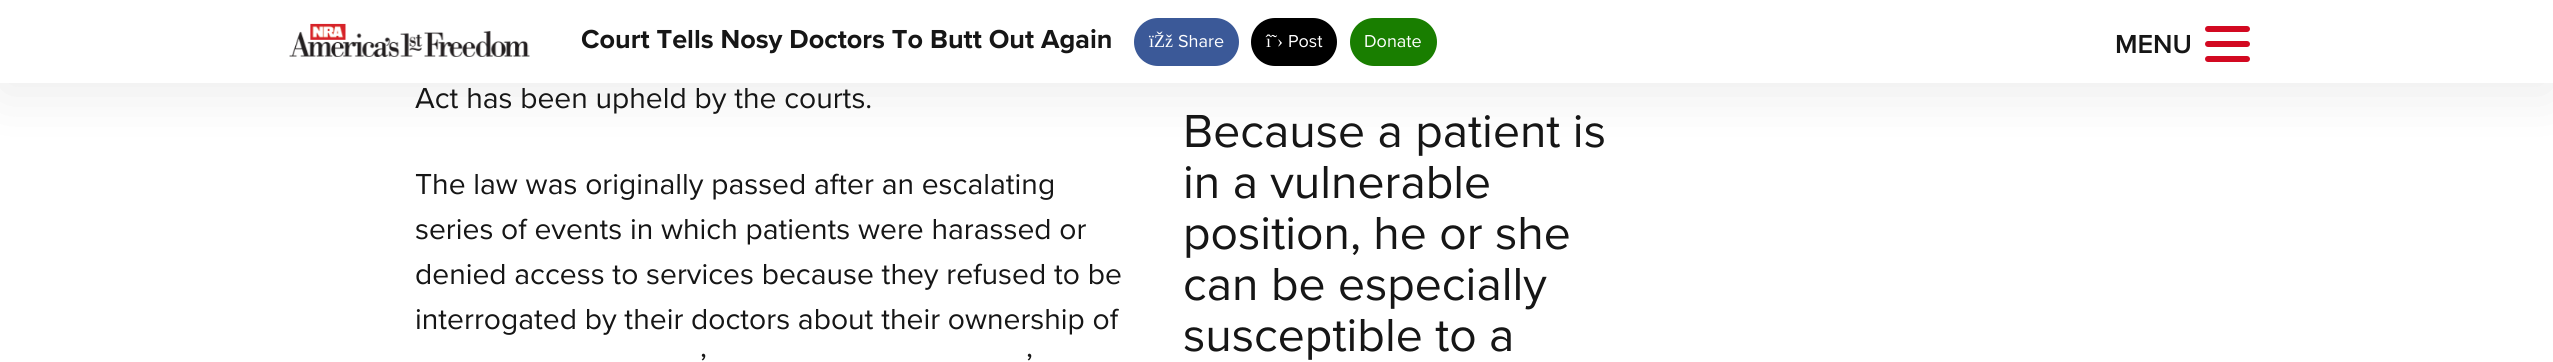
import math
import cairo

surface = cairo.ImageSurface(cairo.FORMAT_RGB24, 2553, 362)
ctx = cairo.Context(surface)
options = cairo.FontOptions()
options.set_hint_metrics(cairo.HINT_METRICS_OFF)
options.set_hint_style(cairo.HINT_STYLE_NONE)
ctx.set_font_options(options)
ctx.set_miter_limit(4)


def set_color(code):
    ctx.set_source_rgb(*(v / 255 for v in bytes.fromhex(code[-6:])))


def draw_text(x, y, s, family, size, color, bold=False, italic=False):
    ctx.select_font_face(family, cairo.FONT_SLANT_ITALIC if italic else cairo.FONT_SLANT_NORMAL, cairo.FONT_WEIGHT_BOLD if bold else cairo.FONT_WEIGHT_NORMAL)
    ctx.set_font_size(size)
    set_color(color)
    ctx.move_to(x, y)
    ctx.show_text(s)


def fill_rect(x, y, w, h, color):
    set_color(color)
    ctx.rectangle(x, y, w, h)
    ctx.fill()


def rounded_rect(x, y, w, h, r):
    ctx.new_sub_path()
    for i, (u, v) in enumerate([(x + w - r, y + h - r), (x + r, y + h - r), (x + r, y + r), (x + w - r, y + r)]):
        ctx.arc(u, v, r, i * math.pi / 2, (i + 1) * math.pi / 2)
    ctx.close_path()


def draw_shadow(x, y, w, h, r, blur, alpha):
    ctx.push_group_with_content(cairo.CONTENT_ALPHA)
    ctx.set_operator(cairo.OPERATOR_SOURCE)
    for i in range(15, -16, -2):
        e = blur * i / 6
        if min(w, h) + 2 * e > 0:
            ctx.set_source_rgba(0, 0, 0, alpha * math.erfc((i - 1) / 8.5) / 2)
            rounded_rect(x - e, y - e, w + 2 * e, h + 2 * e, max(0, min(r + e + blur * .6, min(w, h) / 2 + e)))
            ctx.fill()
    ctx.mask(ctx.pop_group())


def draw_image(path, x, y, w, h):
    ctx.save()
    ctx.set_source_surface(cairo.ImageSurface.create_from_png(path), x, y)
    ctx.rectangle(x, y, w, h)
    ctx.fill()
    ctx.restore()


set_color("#ffffff")
ctx.paint()
set_color("#000000")
draw_shadow(0, 9, 2553, 83, 0, 30, 0.08)
fill_rect(0, 0, 2553, 83, "#ffffff")
draw_image("assets/img1.png", 289, 23, 241, 34)
draw_text(581, 48, "Court Tells Nosy Doctors To Butt Out Again", "Proxima Nova", 27, "#161616", bold=True)
set_color("#3b5998")
rounded_rect(1134, 18, 105, 48, 24)
ctx.fill()
draw_text(1149, 47, "ïŽž", "Liberation Serif", 18, "#ffffff")
draw_text(1178, 47, "Share", "Proxima Nova", 18, "#ffffff")
set_color("#000000")
rounded_rect(1251, 18, 86, 48, 24)
ctx.fill()
draw_text(1266, 47, "î˜›", "Liberation Serif", 18, "#ffffff")
draw_text(1288, 47, "Post", "Proxima Nova", 18, "#ffffff")
set_color("#197e00")
rounded_rect(1350, 18, 87, 48, 24)
ctx.fill()
draw_text(1364, 47, "Donate", "Proxima Nova", 18, "#ffffff")
draw_text(2115, 53, "MENU", "Proxima Nova SemiBold", 27, "#161616")
set_color("#d20921")
rounded_rect(2205, 41, 45, 6, 3)
ctx.fill()
rounded_rect(2205, 26, 45, 6, 3)
ctx.fill()
rounded_rect(2205, 56, 45, 6, 3)
ctx.fill()
draw_text(415, 108, "Act has been upheld by the courts.", "Proxima Nova", 30, "#161616")
draw_text(1183, 147, "Because a patient is", "Proxima Nova", 48, "#161616")
draw_text(1183, 198, "in a vulnerable", "Proxima Nova", 48, "#161616")
draw_text(1183, 249, "position, he or she", "Proxima Nova", 48, "#161616")
draw_text(1183, 300, "can be especially", "Proxima Nova", 48, "#161616")
draw_text(1183, 351, "susceptible to a", "Proxima Nova", 48, "#161616")
draw_text(415, 194, "The law was originally passed after an escalating", "Proxima Nova", 30, "#161616")
draw_text(415, 239, "series of events in which patients were harassed or", "Proxima Nova", 30, "#161616")
draw_text(415, 284, "denied access to services because they refused to be", "Proxima Nova", 30, "#161616")
draw_text(415, 329, "interrogated by their doctors about their ownership of", "Proxima Nova", 30, "#161616")
draw_text(700, 374, "’", "Proxima Nova", 30, "#161616")
draw_text(1026, 374, "’", "Proxima Nova", 30, "#161616")
surface.write_to_png("output.png")
